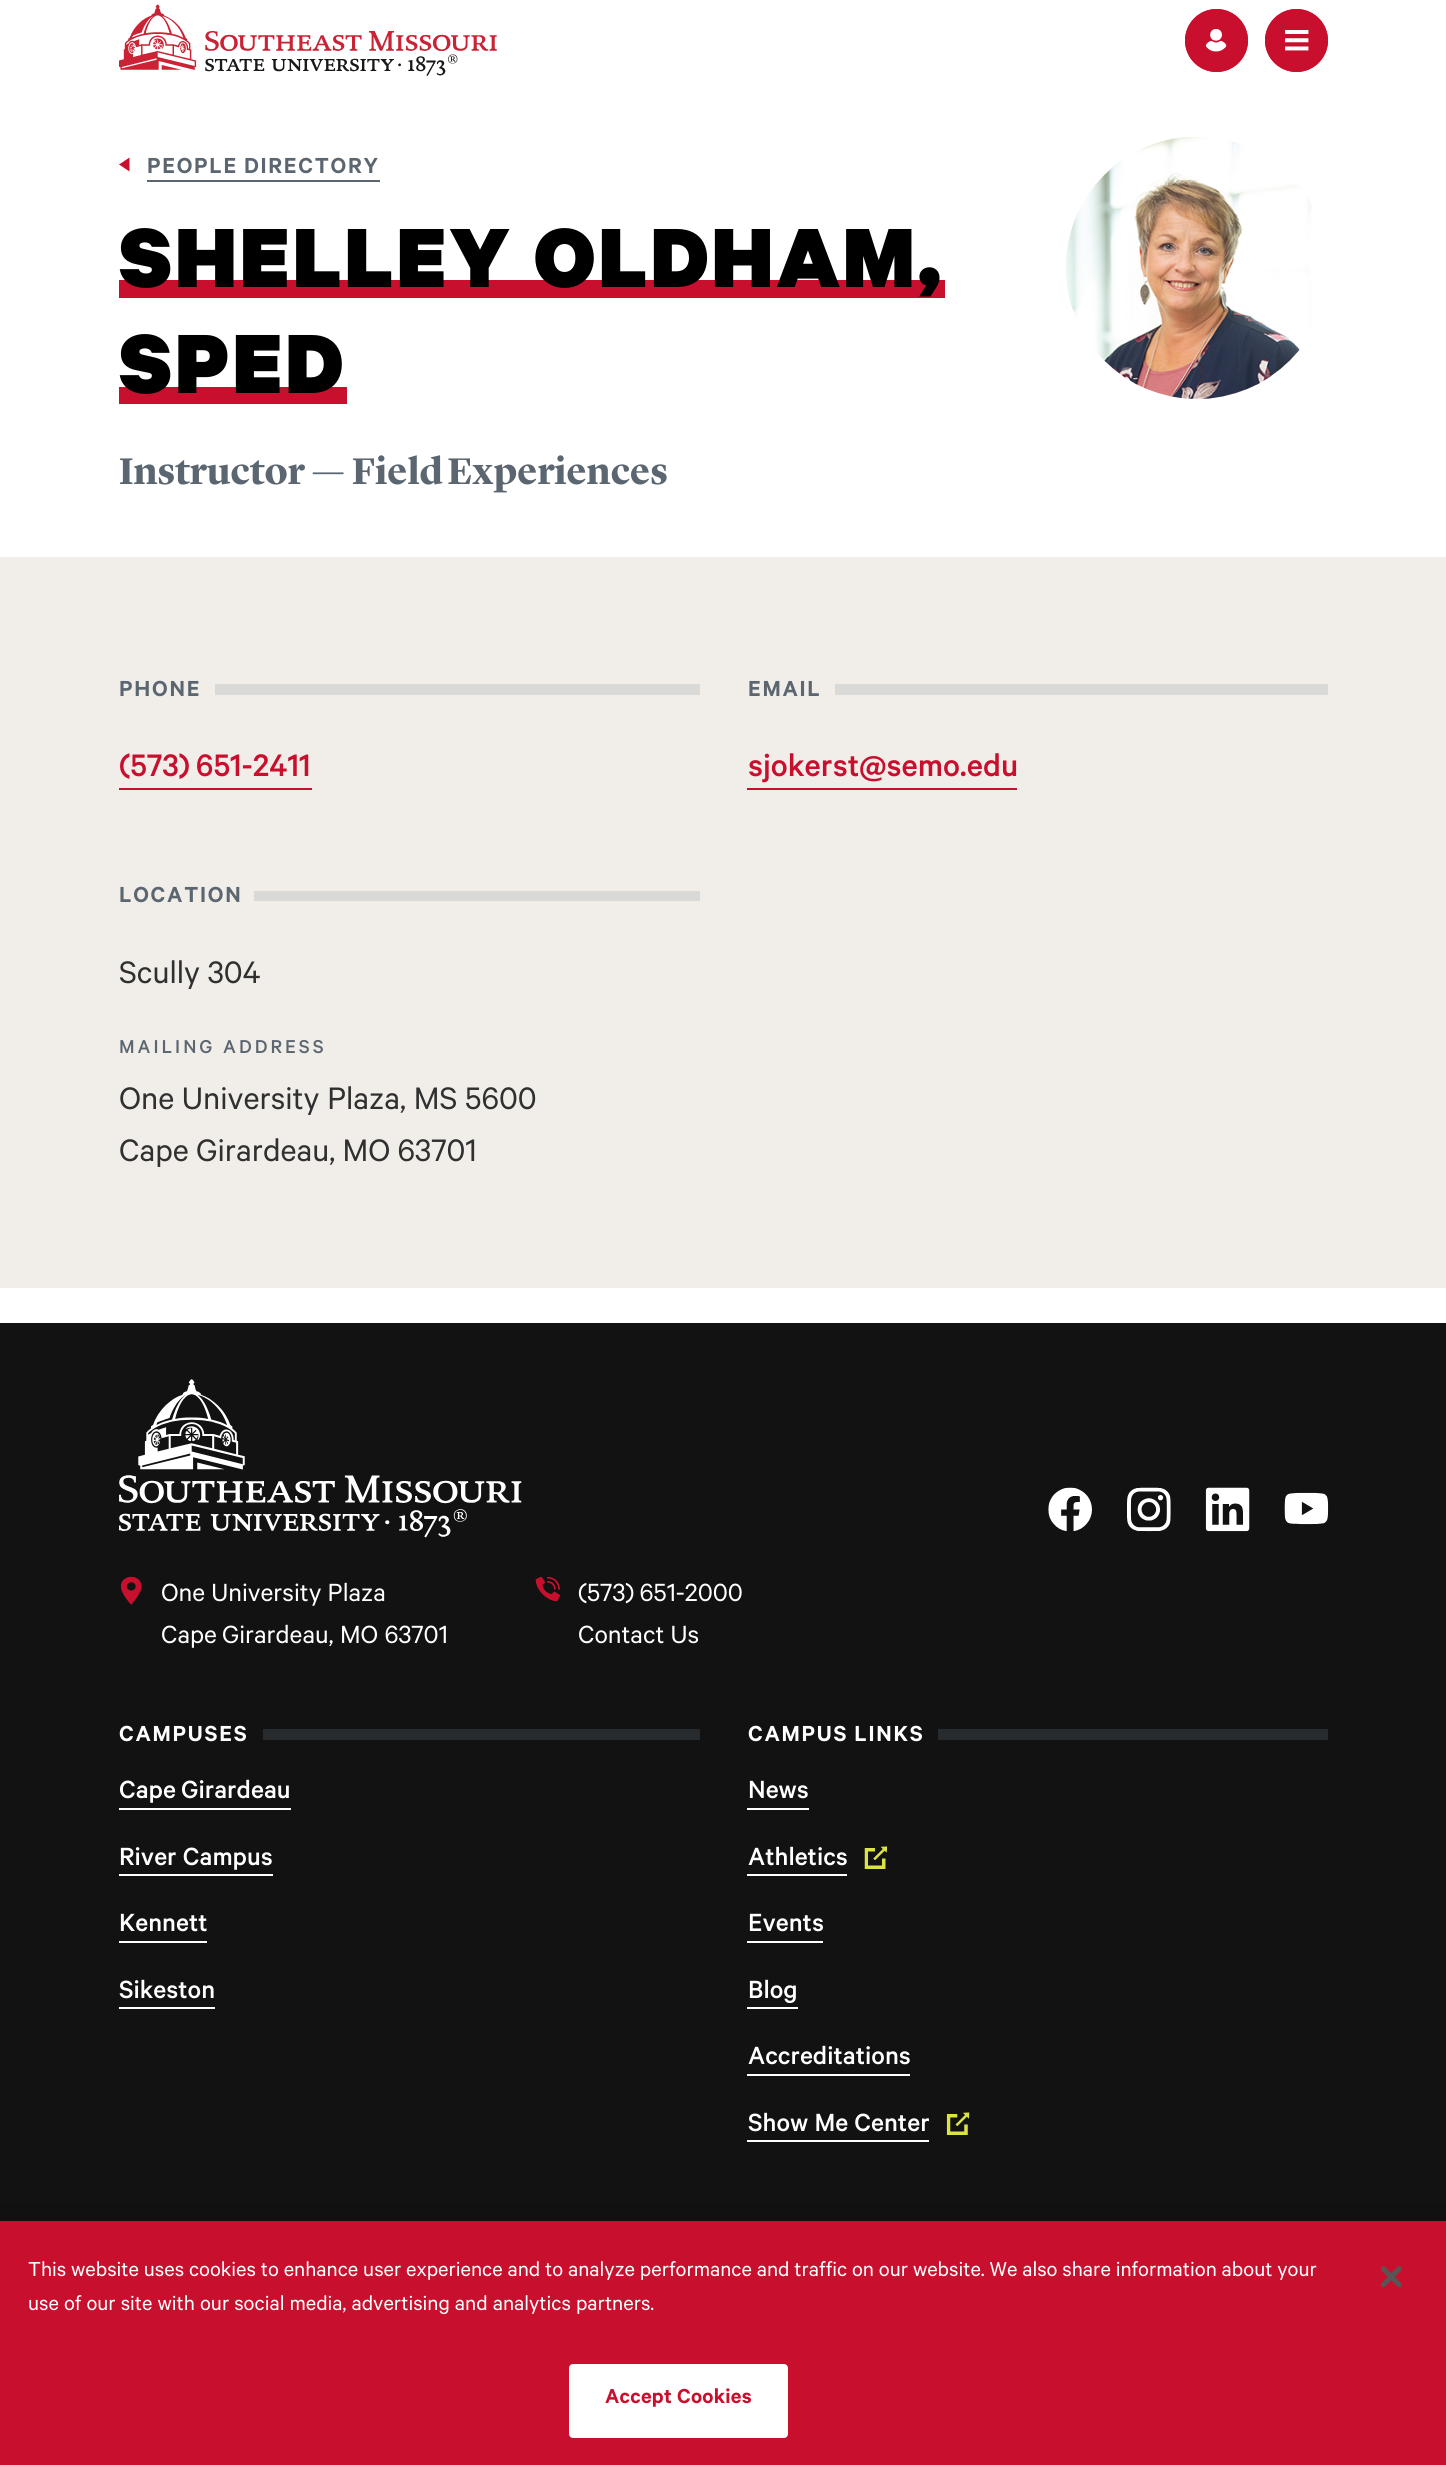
import math
import cairo

surface = cairo.ImageSurface(cairo.FORMAT_RGB24, 1446, 2465)
ctx = cairo.Context(surface)
options = cairo.FontOptions()
options.set_hint_metrics(cairo.HINT_METRICS_OFF)
options.set_hint_style(cairo.HINT_STYLE_NONE)
ctx.set_font_options(options)
ctx.set_miter_limit(4)


def set_color(code):
    ctx.set_source_rgb(*(v / 255 for v in bytes.fromhex(code[-6:])))


def draw_text(x, y, s, family, size, color, bold=False, italic=False):
    ctx.select_font_face(family, cairo.FONT_SLANT_ITALIC if italic else cairo.FONT_SLANT_NORMAL, cairo.FONT_WEIGHT_BOLD if bold else cairo.FONT_WEIGHT_NORMAL)
    ctx.set_font_size(size)
    set_color(color)
    ctx.move_to(x, y)
    ctx.show_text(s)


def draw_spaced(x, y, s, letter, word):
    ctx.move_to(x, y)
    for ch in s:
        ctx.show_text(ch)
        ctx.rel_move_to(letter + word * (ch == ' '), 0)


def fill_rect(x, y, w, h, color):
    set_color(color)
    ctx.rectangle(x, y, w, h)
    ctx.fill()


def rounded_rect(x, y, w, h, r):
    ctx.new_sub_path()
    for i, (u, v) in enumerate([(x + w - r, y + h - r), (x + r, y + h - r), (x + r, y + r), (x + w - r, y + r)]):
        ctx.arc(u, v, r, i * math.pi / 2, (i + 1) * math.pi / 2)
    ctx.close_path()


def draw_shadow(x, y, w, h, r, blur, alpha):
    ctx.push_group_with_content(cairo.CONTENT_ALPHA)
    ctx.set_operator(cairo.OPERATOR_SOURCE)
    for i in range(15, -16, -2):
        e = blur * i / 6
        if min(w, h) + 2 * e > 0:
            ctx.set_source_rgba(0, 0, 0, alpha * math.erfc((i - 1) / 8.5) / 2)
            rounded_rect(x - e, y - e, w + 2 * e, h + 2 * e, max(0, min(r + e + blur * .6, min(w, h) / 2 + e)))
            ctx.fill()
    ctx.mask(ctx.pop_group())


def draw_image(path, x, y, w, h):
    ctx.save()
    ctx.set_source_surface(cairo.ImageSurface.create_from_png(path), x, y)
    ctx.rectangle(x, y, w, h)
    ctx.fill()
    ctx.restore()


set_color("#ffffff")
ctx.paint()
draw_image("assets/img1.png", 119, 4, 378, 72)
ctx.arc(1216.5, 40.5, 29, 0, 2 * math.pi)
set_color("#c8102e")
ctx.set_line_width(5)
ctx.stroke()
ctx.arc(1216.5, 40.5, 31.5, 0, 2 * math.pi)
ctx.fill()
draw_image("assets/img2.png", 1205, 29, 22, 23)
ctx.arc(1296.5, 40.5, 29, 0, 2 * math.pi)
ctx.stroke()
ctx.arc(1296.5, 40.5, 31.5, 0, 2 * math.pi)
ctx.fill()
draw_image("assets/img3.png", 1285, 30, 24, 21)
ctx.new_path()
ctx.move_to(129.5, 157.5)
ctx.line_to(129.5, 171.5)
ctx.line_to(119, 164.5)
ctx.close_path()
ctx.fill()
fill_rect(147, 180, 233, 2, "#5b6670")
ctx.select_font_face("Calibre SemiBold")
ctx.set_font_size(24.5)
draw_spaced(147, 173, "PEOPLE DIRECTORY", 1.75, -1)
fill_rect(119, 280, 826, 18, "#c8102e")
ctx.select_font_face("Calibre Black")
ctx.set_font_size(94.5)
set_color("#000000")
draw_spaced(119, 287, "SHELLEY OLDHAM,", 3.5, 0)
fill_rect(119, 387, 228, 17, "#c8102e")
set_color("#000000")
draw_spaced(119, 393, "SPED", 3.5, 0)
draw_text(119, 484, "Instructor —", "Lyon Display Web", 38.5, "#5b6670", bold=True)
draw_spaced(352, 484, "Field Experiences", 0, -2)
draw_image("assets/img4.png", 1066, 137, 246, 262)
fill_rect(0, 557, 1446, 731, "#f1eeea")
ctx.select_font_face("Calibre SemiBold")
ctx.set_font_size(24.5)
set_color("#5b6670")
draw_spaced(119, 696, "PHONE", 1.75, 0)
fill_rect(215, 684, 485, 11, "#d9dad8")
ctx.select_font_face("Calibre Medium")
ctx.set_font_size(35)
set_color("#c8102e")
draw_spaced(119, 776, "(573) 651-2411", 0, -2)
fill_rect(119, 788, 193, 2, "#c8102e")
ctx.select_font_face("Calibre SemiBold")
ctx.set_font_size(24.5)
set_color("#5b6670")
draw_spaced(748, 696, "EMAIL", 1.75, 0)
fill_rect(835, 684, 493, 11, "#d9dad8")
draw_text(748, 776, "sjokerst@semo.edu", "Calibre Medium", 35, "#c8102e")
fill_rect(747, 788, 270, 2, "#c8102e")
ctx.select_font_face("Calibre SemiBold")
ctx.set_font_size(24.5)
set_color("#5b6670")
draw_spaced(119, 902, "LOCATION", 1.75, 0)
fill_rect(254, 891, 446, 10, "#d9dad8")
draw_text(119, 983, "Scully 304", "Calibre", 35, "#303030")
ctx.select_font_face("Calibre Medium")
ctx.set_font_size(21)
set_color("#5b6670")
draw_spaced(119, 1053, "MAILING ADDRESS", 3, 0)
draw_text(119, 1109, "One University Plaza, MS 5600", "Calibre", 35, "#303030")
draw_spaced(119, 1161, "Cape Girardeau, MO 63701", 0, -0.5)
fill_rect(0, 1323, 1446, 898, "#121212")
draw_image("assets/img5.png", 1048, 1487, 44, 45)
draw_image("assets/img6.png", 1127, 1487, 44, 45)
draw_image("assets/img7.png", 1205, 1487, 45, 45)
draw_image("assets/img8.png", 1284, 1492, 45, 33)
draw_image("assets/img9.png", 119, 1379, 403, 159)
draw_image("assets/img10.png", 120, 1576, 22, 29)
draw_text(161, 1601, "One University Plaza", "Calibre", 28, "#ffffff")
draw_spaced(161, 1643, "Cape Girardeau,", 0, -1)
draw_text(340, 1643, "MO 63701", "Calibre", 28, "#ffffff")
draw_image("assets/img11.png", 535, 1576, 25, 26)
draw_spaced(578, 1601, "(573) 651-2000", 0, -1)
draw_text(578, 1643, "Contact Us", "Calibre", 28, "#ffffff")
ctx.select_font_face("Calibre SemiBold")
ctx.set_font_size(24.5)
draw_spaced(119, 1741, "CAMPUSES", 1.75, 0)
fill_rect(263, 1729, 437, 11, "#282b2e")
ctx.select_font_face("Calibre Medium")
ctx.set_font_size(28)
set_color("#ffffff")
draw_spaced(119, 1798, "Cape Girardeau", 0, -1)
fill_rect(119, 1808, 172, 2, "#ffffff")
draw_text(119, 1865, "River Campus", "Calibre Medium", 28, "#ffffff")
fill_rect(119, 1874, 154, 2, "#ffffff")
draw_text(119, 1931, "Kennett", "Calibre Medium", 28, "#ffffff")
fill_rect(119, 1941, 88, 2, "#ffffff")
draw_text(119, 1998, "Sikeston", "Calibre Medium", 28, "#ffffff")
fill_rect(119, 2007, 96, 2, "#ffffff")
ctx.select_font_face("Calibre SemiBold")
ctx.set_font_size(24.5)
draw_spaced(748, 1741, "CAMPUS LINKS", 1.75, -1)
fill_rect(938, 1729, 390, 11, "#282b2e")
fill_rect(747, 1808, 62, 2, "#ffffff")
draw_text(748, 1798, "News", "Calibre Medium", 28, "#ffffff")
fill_rect(747, 1874, 100, 2, "#ffffff")
draw_text(748, 1865, "Athletics", "Calibre Medium", 28, "#ffffff")
draw_image("assets/img12.png", 864, 1846, 24, 23)
fill_rect(747, 1941, 76, 2, "#ffffff")
draw_text(748, 1931, "Events", "Calibre Medium", 28, "#ffffff")
fill_rect(747, 2007, 51, 2, "#ffffff")
draw_text(748, 1998, "Blog", "Calibre Medium", 28, "#ffffff")
fill_rect(747, 2074, 163, 2, "#ffffff")
draw_text(748, 2064, "Accreditations", "Calibre Medium", 28, "#ffffff")
fill_rect(747, 2140, 182, 2, "#ffffff")
draw_text(748, 2131, "Show Me Center", "Calibre Medium", 28, "#ffffff")
draw_image("assets/img13.png", 946, 2112, 24, 23)
set_color("#000000")
draw_shadow(0, 2221, 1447, 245, 0, 16, 0.2)
fill_rect(0, 2221, 1446, 244, "#c8102e")
ctx.select_font_face("Calibre")
ctx.set_font_size(22.75)
set_color("#ffffff")
draw_spaced(28, 2276, "This website uses cookies to enhance user experience and to analyze performance and traffic on our website. We also share information about your", 0, -0.2)
draw_text(28, 2310, "use of our site with our social media, advertising and analytics partners.", "Calibre", 22.75, "#ffffff")
rounded_rect(570, 2365, 217, 72, 3)
ctx.fill_preserve()
ctx.set_line_width(2)
ctx.stroke()
ctx.select_font_face("Calibre SemiBold")
set_color("#c8102e")
draw_spaced(605, 2403, "Accept Cookies", 0.25, 0)
draw_image("assets/img14.png", 1381, 2266, 21, 21)
surface.write_to_png("output.png")
